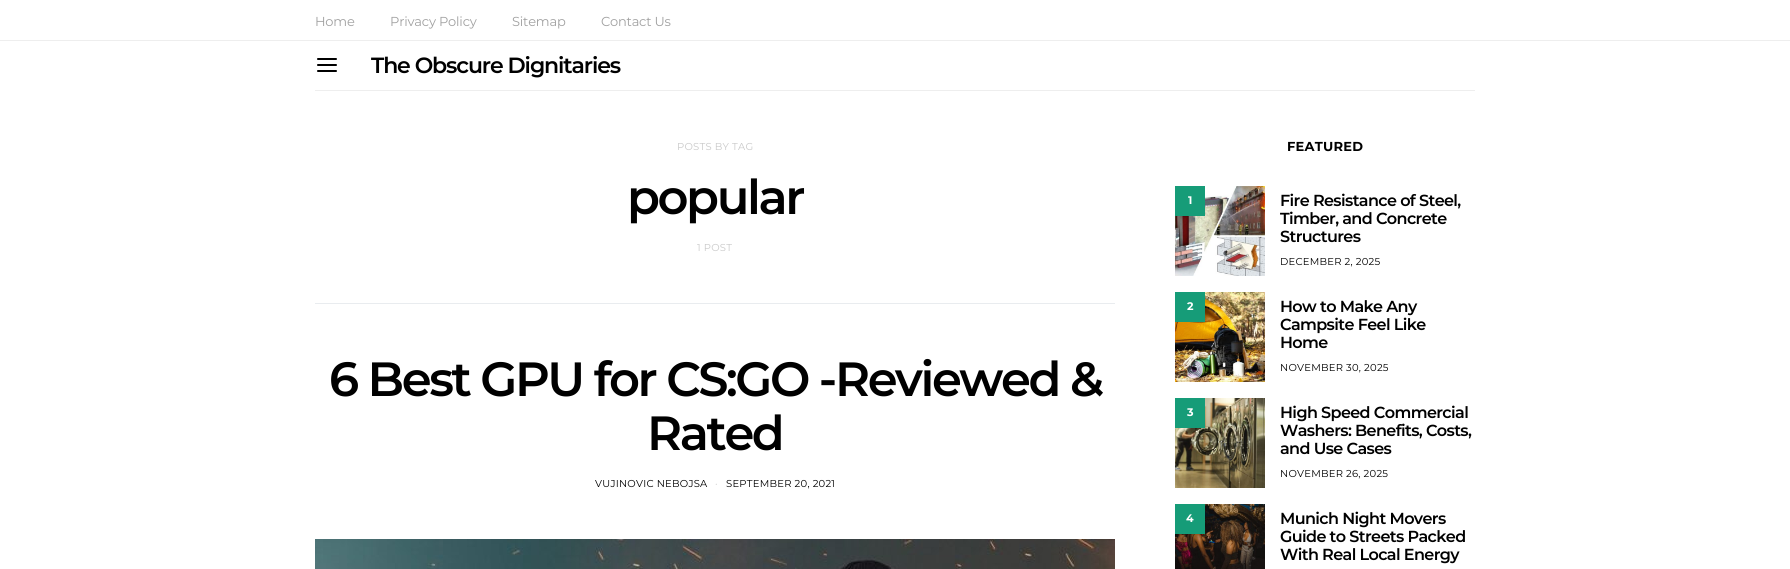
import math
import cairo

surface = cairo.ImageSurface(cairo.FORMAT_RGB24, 1790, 569)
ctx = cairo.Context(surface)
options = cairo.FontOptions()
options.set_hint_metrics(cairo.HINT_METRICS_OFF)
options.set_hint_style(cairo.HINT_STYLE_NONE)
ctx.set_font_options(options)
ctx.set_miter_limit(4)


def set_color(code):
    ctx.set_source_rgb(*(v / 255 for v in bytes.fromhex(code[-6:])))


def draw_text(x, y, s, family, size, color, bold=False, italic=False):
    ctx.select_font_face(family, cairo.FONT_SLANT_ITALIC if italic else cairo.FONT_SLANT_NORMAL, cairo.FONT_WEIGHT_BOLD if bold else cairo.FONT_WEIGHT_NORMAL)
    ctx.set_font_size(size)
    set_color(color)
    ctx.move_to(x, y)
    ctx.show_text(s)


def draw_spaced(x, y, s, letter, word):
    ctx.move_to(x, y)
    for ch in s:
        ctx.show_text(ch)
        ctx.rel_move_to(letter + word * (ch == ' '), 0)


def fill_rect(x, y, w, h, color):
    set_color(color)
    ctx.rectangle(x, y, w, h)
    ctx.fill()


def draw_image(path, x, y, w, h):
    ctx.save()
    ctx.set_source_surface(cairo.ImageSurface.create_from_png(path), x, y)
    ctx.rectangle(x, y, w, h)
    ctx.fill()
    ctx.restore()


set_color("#ffffff")
ctx.paint()
fill_rect(0, 40, 1790, 1, "#eeeeee")
ctx.select_font_face("Montserrat")
ctx.set_font_size(13)
set_color("#a0a0a0")
draw_spaced(315, 26, "Home", -0.2, 0)
draw_spaced(390, 26, "Privacy Policy", -0.2, 0)
draw_spaced(512, 26, "Sitemap", -0.2, 0)
draw_spaced(601, 26, "Contact Us", -0.2, 0)
fill_rect(315, 90, 1160, 1, "#eeeeee")
draw_image("assets/img1.png", 317, 58, 20, 14)
ctx.select_font_face("Montserrat SemiBold")
ctx.set_font_size(22)
set_color("#000000")
draw_spaced(371, 73, "The Obscure Dignitaries", -1.1, 0)
ctx.select_font_face("Montserrat")
ctx.set_font_size(10)
set_color("#c9c9c9")
draw_spaced(677, 150, "POSTS BY TAG", 0.25, 0)
ctx.select_font_face("Montserrat SemiBold")
ctx.set_font_size(48)
set_color("#000000")
draw_spaced(627, 214, "popular", -2.4, 0)
ctx.select_font_face("Montserrat")
ctx.set_font_size(10)
set_color("#c9c9c9")
draw_spaced(697, 251, "1 POST", 0.25, 0)
fill_rect(315, 303, 800, 1, "#e9ecef")
ctx.select_font_face("Montserrat SemiBold")
ctx.set_font_size(48)
set_color("#000000")
draw_spaced(329, 396, "6 Best GPU for CS:GO -Reviewed &", -2.4, 0)
draw_spaced(647, 450, "Rated", -2.4, 0)
ctx.select_font_face("Montserrat")
ctx.set_font_size(10)
draw_spaced(595, 487, "VUJINOVIC NEBOJSA", 0.25, 0)
set_color("#c9c9c9")
draw_spaced(715, 487, "·", 0.25, 0)
set_color("#000000")
draw_spaced(726, 487, "SEPTEMBER 20, 2021", 0.25, 0)
draw_image("assets/img2.png", 315, 539, 800, 30)
ctx.select_font_face("Montserrat", cairo.FONT_SLANT_NORMAL, cairo.FONT_WEIGHT_BOLD)
ctx.set_font_size(13)
draw_spaced(1287, 151, "FEATURED", 0.25, 0)
draw_image("assets/img3.png", 1175, 186, 90, 90)
fill_rect(1175, 186, 30, 30, "#169c78")
draw_text(1188, 204, "1", "Montserrat", 11, "#ffffff", bold=True)
ctx.select_font_face("Montserrat SemiBold")
ctx.set_font_size(16)
set_color("#000000")
draw_spaced(1280, 206, "Fire Resistance of Steel,", -0.6, 0)
draw_spaced(1280, 224, "Timber, and Concrete", -0.6, 0)
draw_spaced(1280, 242, "Structures", -0.6, 0)
ctx.select_font_face("Montserrat")
ctx.set_font_size(10)
draw_spaced(1280, 265, "DECEMBER 2, 2025", 0.25, 0)
draw_image("assets/img4.png", 1175, 292, 90, 90)
fill_rect(1175, 292, 30, 30, "#169c78")
draw_text(1187, 310, "2", "Montserrat", 11, "#ffffff", bold=True)
ctx.select_font_face("Montserrat SemiBold")
ctx.set_font_size(16)
set_color("#000000")
draw_spaced(1280, 312, "How to Make Any", -0.6, 0)
draw_spaced(1280, 330, "Campsite Feel Like", -0.6, 0)
draw_spaced(1280, 348, "Home", -0.6, 0)
ctx.select_font_face("Montserrat")
ctx.set_font_size(10)
draw_spaced(1280, 371, "NOVEMBER 30, 2025", 0.25, 0)
draw_image("assets/img5.png", 1175, 398, 90, 90)
fill_rect(1175, 398, 30, 30, "#169c78")
draw_text(1187, 416, "3", "Montserrat", 11, "#ffffff", bold=True)
ctx.select_font_face("Montserrat SemiBold")
ctx.set_font_size(16)
set_color("#000000")
draw_spaced(1280, 418, "High Speed Commercial", -0.6, 0)
draw_spaced(1280, 436, "Washers: Benefits, Costs,", -0.6, 0)
draw_spaced(1280, 454, "and Use Cases", -0.6, 0)
ctx.select_font_face("Montserrat")
ctx.set_font_size(10)
draw_spaced(1280, 477, "NOVEMBER 26, 2025", 0.25, 0)
draw_image("assets/img6.png", 1175, 504, 90, 65)
fill_rect(1175, 504, 30, 30, "#169c78")
draw_text(1186, 522, "4", "Montserrat", 11, "#ffffff", bold=True)
ctx.select_font_face("Montserrat SemiBold")
ctx.set_font_size(16)
set_color("#000000")
draw_spaced(1280, 524, "Munich Night Movers", -0.6, 0)
draw_spaced(1280, 542, "Guide to Streets Packed", -0.6, 0)
draw_spaced(1280, 560, "With Real Local Energy", -0.6, 0)
surface.write_to_png("output.png")
